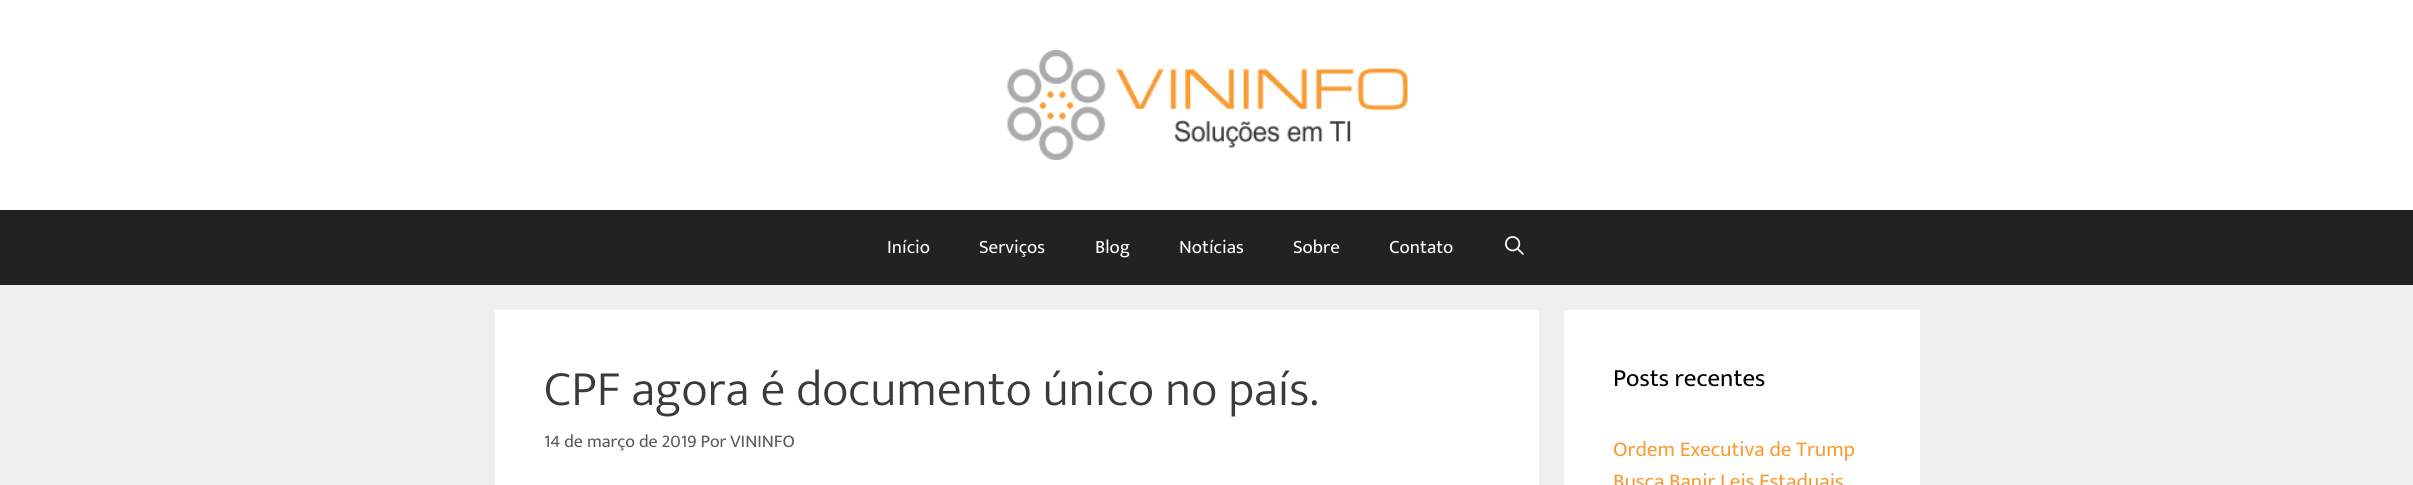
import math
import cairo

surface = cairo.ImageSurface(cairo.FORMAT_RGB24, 2413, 485)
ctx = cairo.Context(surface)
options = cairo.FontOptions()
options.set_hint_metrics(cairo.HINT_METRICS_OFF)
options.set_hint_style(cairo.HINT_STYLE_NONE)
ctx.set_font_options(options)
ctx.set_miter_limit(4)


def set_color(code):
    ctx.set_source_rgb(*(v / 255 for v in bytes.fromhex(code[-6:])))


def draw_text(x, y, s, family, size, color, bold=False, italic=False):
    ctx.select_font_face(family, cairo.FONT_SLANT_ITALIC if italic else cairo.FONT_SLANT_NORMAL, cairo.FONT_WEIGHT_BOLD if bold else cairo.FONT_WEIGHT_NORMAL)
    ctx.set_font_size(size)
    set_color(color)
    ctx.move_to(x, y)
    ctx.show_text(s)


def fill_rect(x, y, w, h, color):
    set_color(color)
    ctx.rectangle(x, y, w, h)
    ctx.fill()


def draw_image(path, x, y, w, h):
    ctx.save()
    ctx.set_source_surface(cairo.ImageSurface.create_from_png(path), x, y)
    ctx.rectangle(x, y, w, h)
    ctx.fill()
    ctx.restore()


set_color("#efefef")
ctx.paint()
fill_rect(0, 0, 2413, 210, "#ffffff")
draw_image("assets/img1.png", 1007, 50, 401, 110)
fill_rect(0, 210, 2413, 75, "#222222")
draw_text(887, 253, "Início", "Ek Mukta", 19, "#ffffff")
draw_text(979, 253, "Serviços", "Ek Mukta", 19, "#ffffff")
draw_text(1095, 253, "Blog", "Ek Mukta", 19, "#ffffff")
draw_text(1179, 253, "Notícias", "Ek Mukta", 19, "#ffffff")
draw_text(1293, 253, "Sobre", "Ek Mukta", 19, "#ffffff")
draw_text(1389, 253, "Contato", "Ek Mukta", 19, "#ffffff")
draw_image("assets/img2.png", 1505, 236, 19, 19)
fill_rect(495, 310, 1044, 175, "#ffffff")
draw_text(544, 405, "CPF agora é documento único no país.", "Ek Mukta Light", 50, "#3a3a3a")
draw_text(544, 447, "14 de março de 2019 Por VININFO", "Ek Mukta", 18, "#595959")
fill_rect(1564, 310, 356, 175, "#ffffff")
draw_text(1613, 386, "Posts recentes", "Ek Mukta", 25, "#000000")
draw_text(1613, 456, "Ordem Executiva de Trump", "Ek Mukta", 21.25, "#f89c32")
draw_text(1613, 488, "Busca Banir Leis Estaduais", "Ek Mukta", 21.25, "#f89c32")
surface.write_to_png("output.png")
